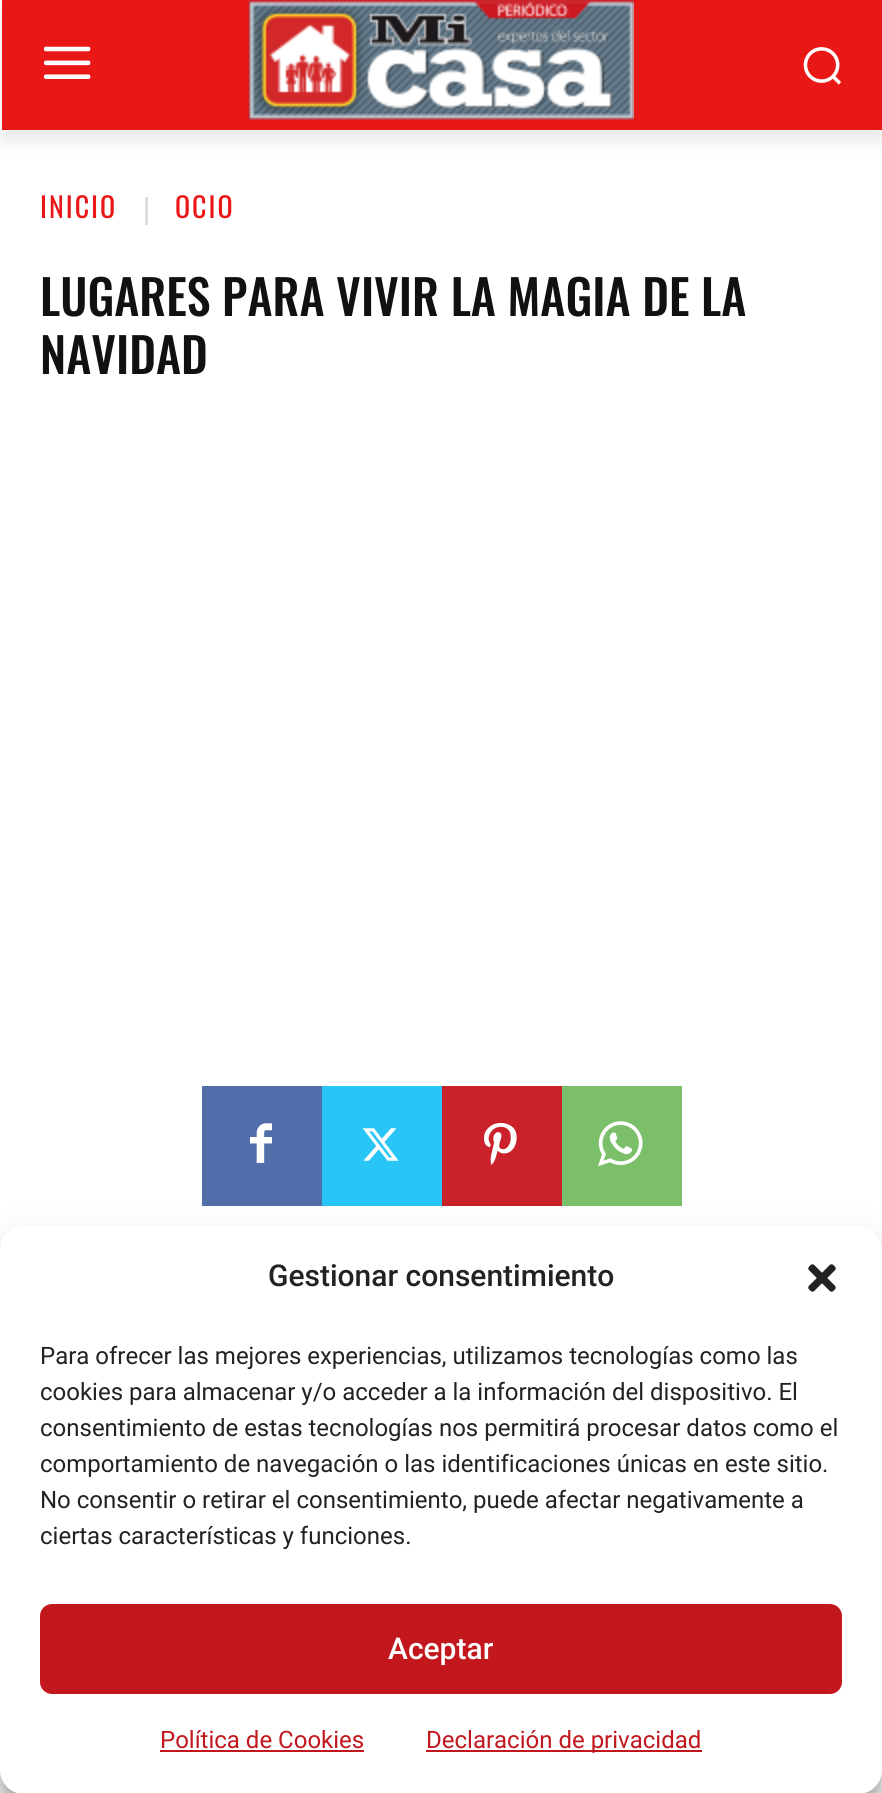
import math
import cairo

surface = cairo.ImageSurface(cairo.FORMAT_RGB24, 882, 1793)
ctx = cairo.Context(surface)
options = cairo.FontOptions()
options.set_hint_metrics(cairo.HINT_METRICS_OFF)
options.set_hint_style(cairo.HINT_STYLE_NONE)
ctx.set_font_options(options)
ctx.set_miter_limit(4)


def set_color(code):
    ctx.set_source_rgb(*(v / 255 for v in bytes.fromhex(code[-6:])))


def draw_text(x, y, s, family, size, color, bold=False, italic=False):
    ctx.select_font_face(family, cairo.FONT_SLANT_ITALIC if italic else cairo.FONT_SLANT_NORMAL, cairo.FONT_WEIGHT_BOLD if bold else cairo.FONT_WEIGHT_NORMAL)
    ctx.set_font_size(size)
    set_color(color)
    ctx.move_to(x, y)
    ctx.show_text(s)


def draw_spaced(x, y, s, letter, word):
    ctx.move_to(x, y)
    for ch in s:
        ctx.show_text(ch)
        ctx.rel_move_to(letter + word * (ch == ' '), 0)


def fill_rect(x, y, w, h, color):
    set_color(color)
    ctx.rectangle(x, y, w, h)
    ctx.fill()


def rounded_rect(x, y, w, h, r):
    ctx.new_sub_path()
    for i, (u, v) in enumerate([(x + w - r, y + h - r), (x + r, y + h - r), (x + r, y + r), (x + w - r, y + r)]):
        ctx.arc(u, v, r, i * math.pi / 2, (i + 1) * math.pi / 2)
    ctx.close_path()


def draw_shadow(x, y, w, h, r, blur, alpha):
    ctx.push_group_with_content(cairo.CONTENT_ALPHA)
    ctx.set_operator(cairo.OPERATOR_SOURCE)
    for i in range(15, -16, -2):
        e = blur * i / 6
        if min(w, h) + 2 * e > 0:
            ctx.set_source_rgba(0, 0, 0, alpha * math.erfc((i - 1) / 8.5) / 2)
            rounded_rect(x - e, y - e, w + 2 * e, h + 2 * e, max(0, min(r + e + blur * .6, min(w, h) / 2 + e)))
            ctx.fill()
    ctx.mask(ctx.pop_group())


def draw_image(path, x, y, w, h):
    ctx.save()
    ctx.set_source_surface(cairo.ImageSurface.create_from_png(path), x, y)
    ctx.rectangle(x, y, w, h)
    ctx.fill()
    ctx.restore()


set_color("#ffffff")
ctx.paint()
fill_rect(2, 0, 880, 130, "#ea1717")
draw_image("assets/img1.png", 44, 46, 47, 33)
draw_image("assets/img2.png", 248, 0, 386, 120)
draw_image("assets/img3.png", 803, 47, 39, 38)
ctx.save()
ctx.set_fill_rule(cairo.FILL_RULE_EVEN_ODD)
ctx.new_path()
ctx.move_to(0, 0)
ctx.line_to(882, 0)
ctx.line_to(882, 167)
ctx.line_to(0, 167)
ctx.close_path()
ctx.move_to(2, 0)
ctx.line_to(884, 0)
ctx.line_to(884, 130)
ctx.line_to(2, 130)
ctx.close_path()
ctx.clip()
set_color("#000000")
draw_shadow(2, 12, 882, 130, 0, 8, 0.08)
ctx.restore()
ctx.select_font_face("Oswald")
ctx.set_font_size(28)
draw_spaced(40, 218, "INICIO", 2, 0)
fill_rect(145, 197, 3, 28, "#dddddd")
set_color("#ea1717")
draw_spaced(175, 218, "OCIO", 2, 0)
draw_text(40, 316, "LUGARES PARA VIVIR LA MAGIA DE LA", "Oswald Medium", 48, "#111111")
draw_text(40, 374, "NAVIDAD", "Oswald Medium", 48, "#111111")
fill_rect(202, 1086, 120, 120, "#516eab")
draw_image("assets/img4.png", 250, 1123, 22, 40)
fill_rect(322, 1086, 120, 120, "#29c5f6")
draw_image("assets/img5.png", 362, 1128, 37, 33)
fill_rect(442, 1086, 120, 120, "#ca212a")
draw_image("assets/img6.png", 484, 1122, 33, 43)
fill_rect(562, 1086, 120, 120, "#7bbf6a")
draw_image("assets/img7.png", 598, 1121, 45, 46)
set_color("#000000")
draw_shadow(0, 1238, 882, 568, 24, 6, 0.23)
draw_shadow(0, 1246, 882, 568, 24, 20, 0.19)
set_color("#ffffff")
rounded_rect(0, 1226, 882, 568, 24)
ctx.fill()
draw_text(268, 1286, "Gestionar consentimiento", "Roboto Medium", 30, "#222222")
draw_image("assets/img8.png", 808, 1264, 28, 28)
draw_text(40, 1364, "Para ofrecer las mejores experiencias, utilizamos tecnologías como las", "Roboto", 24, "#222222")
draw_text(40, 1400, "cookies para almacenar y/o acceder a la información del dispositivo. El", "Roboto", 24, "#222222")
draw_text(40, 1436, "consentimiento de estas tecnologías nos permitirá procesar datos como el", "Roboto", 24, "#222222")
draw_text(40, 1472, "comportamiento de navegación o las identificaciones únicas en este sitio.", "Roboto", 24, "#222222")
draw_text(40, 1508, "No consentir o retirar el consentimiento, puede afectar negativamente a", "Roboto", 24, "#222222")
draw_text(40, 1544, "ciertas características y funciones.", "Roboto", 24, "#222222")
set_color("#c1171d")
rounded_rect(41, 1605, 800, 88, 11)
ctx.fill_preserve()
ctx.stroke()
draw_text(388, 1659, "Aceptar", "Roboto Medium", 30, "#ffffff")
draw_text(160, 1748, "Política de Cookies", "Roboto", 24, "#c1171d")
fill_rect(160, 1750, 204, 2, "#c1171d")
fill_rect(426, 1750, 276, 2, "#c1171d")
draw_text(426, 1748, "Declaración de privacidad", "Roboto", 24, "#c1171d")
surface.write_to_png("output.png")
